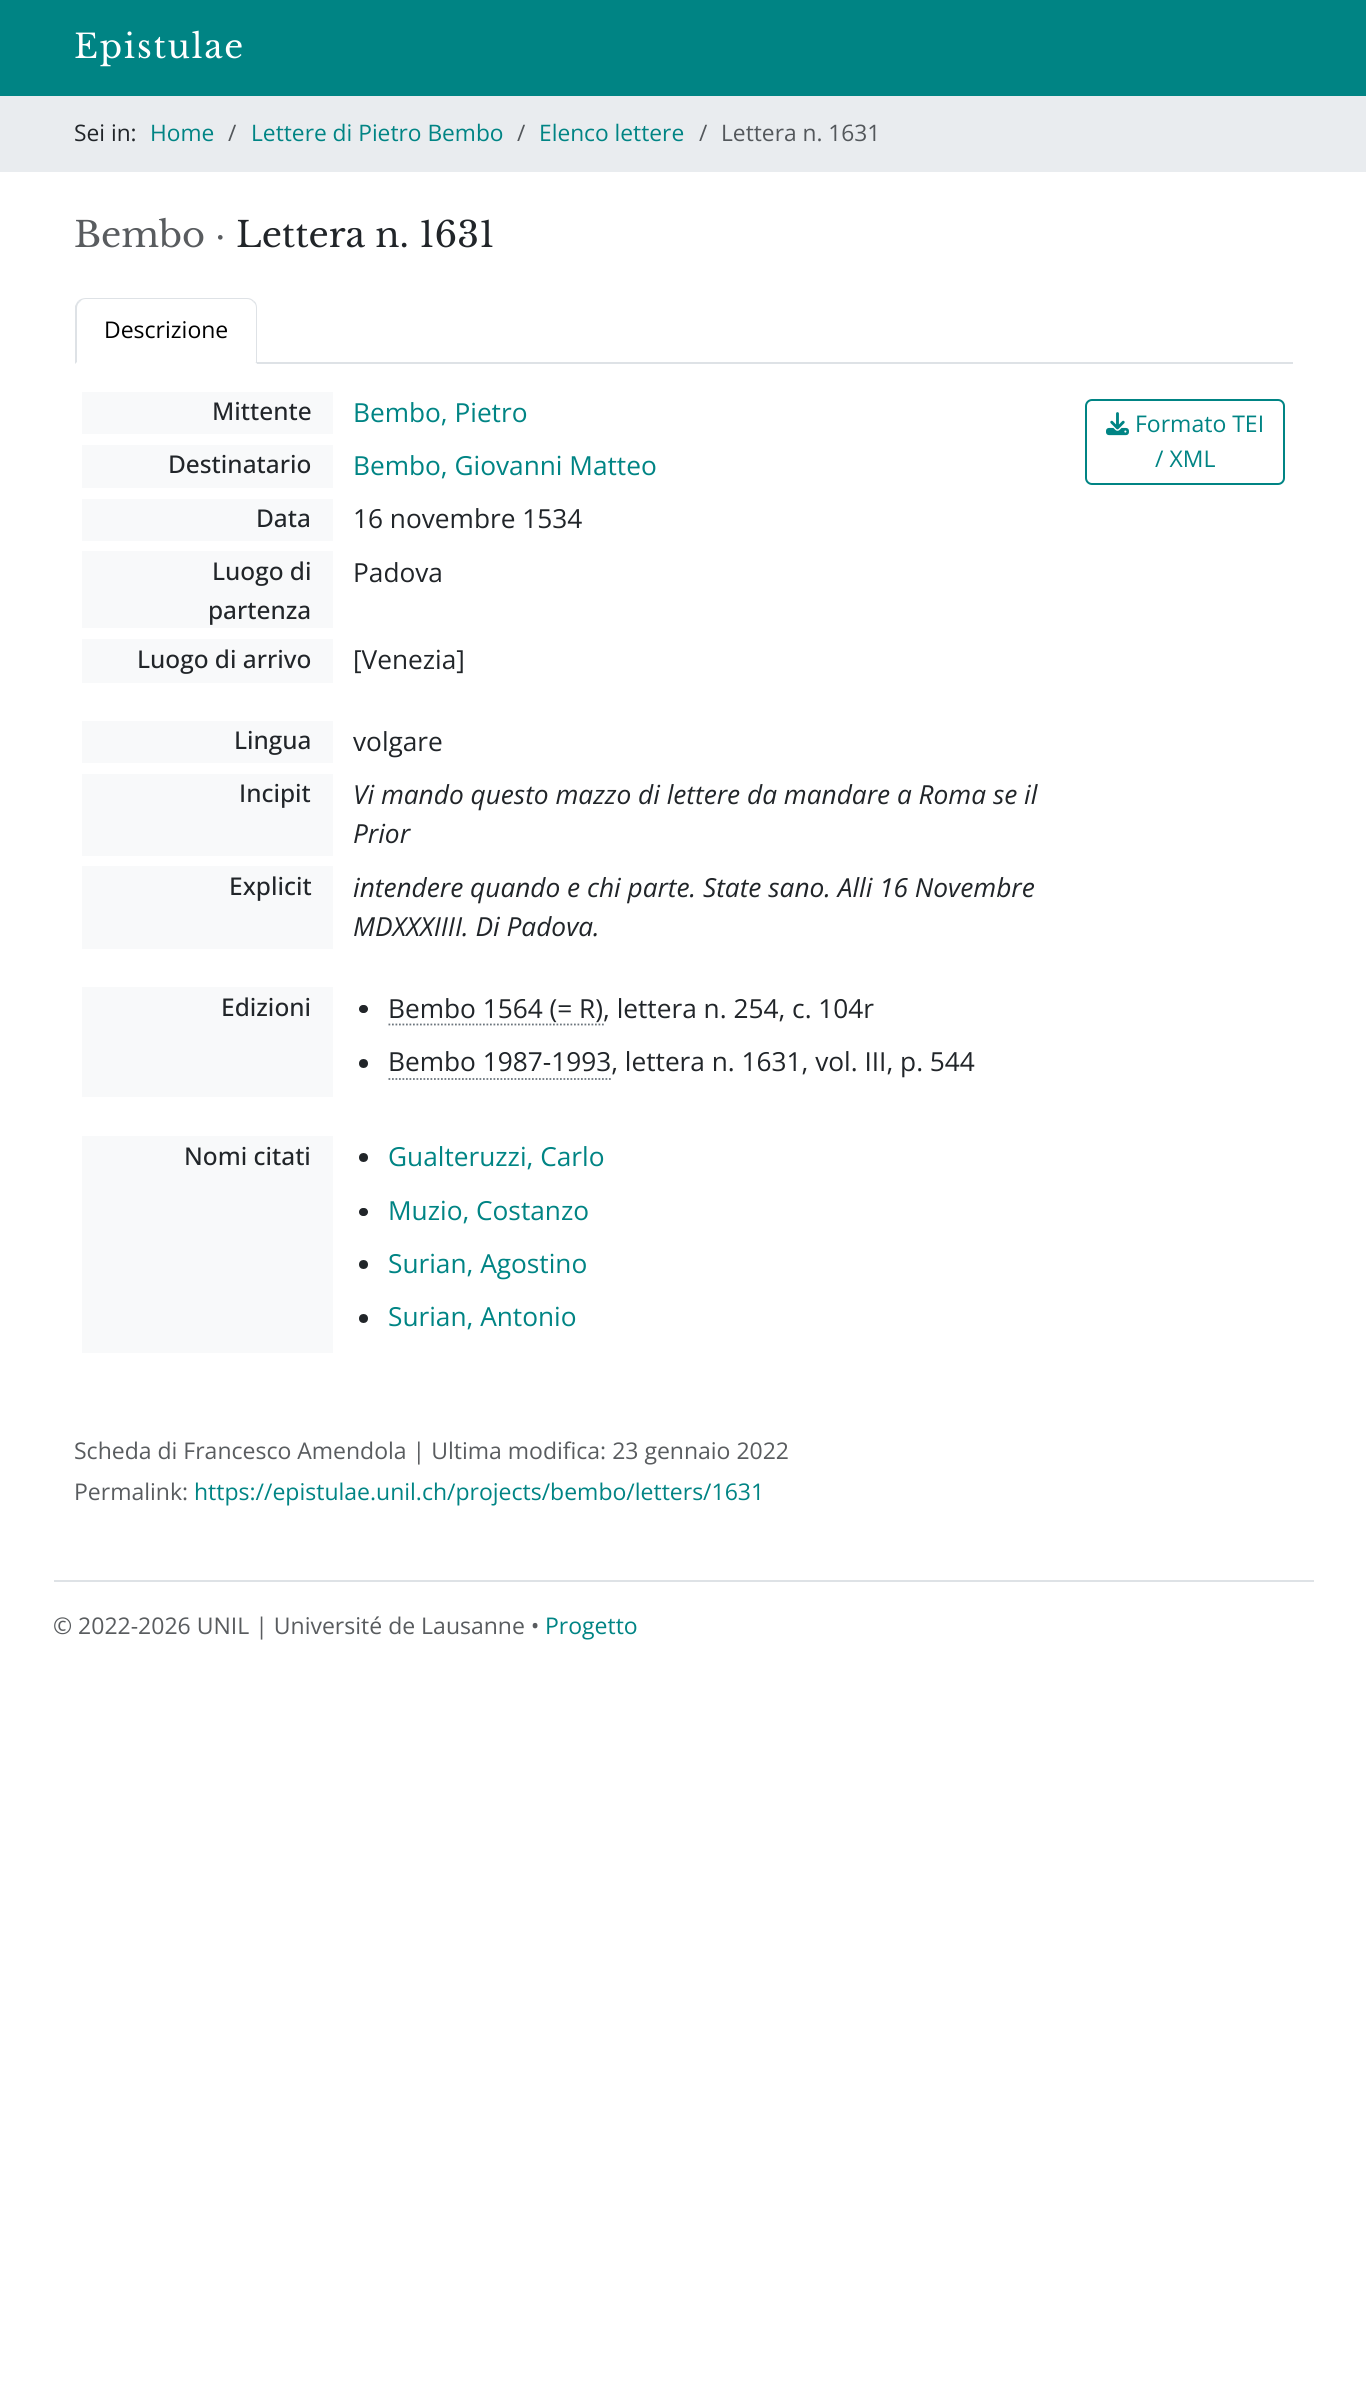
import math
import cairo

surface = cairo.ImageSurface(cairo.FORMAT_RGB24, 1366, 2394)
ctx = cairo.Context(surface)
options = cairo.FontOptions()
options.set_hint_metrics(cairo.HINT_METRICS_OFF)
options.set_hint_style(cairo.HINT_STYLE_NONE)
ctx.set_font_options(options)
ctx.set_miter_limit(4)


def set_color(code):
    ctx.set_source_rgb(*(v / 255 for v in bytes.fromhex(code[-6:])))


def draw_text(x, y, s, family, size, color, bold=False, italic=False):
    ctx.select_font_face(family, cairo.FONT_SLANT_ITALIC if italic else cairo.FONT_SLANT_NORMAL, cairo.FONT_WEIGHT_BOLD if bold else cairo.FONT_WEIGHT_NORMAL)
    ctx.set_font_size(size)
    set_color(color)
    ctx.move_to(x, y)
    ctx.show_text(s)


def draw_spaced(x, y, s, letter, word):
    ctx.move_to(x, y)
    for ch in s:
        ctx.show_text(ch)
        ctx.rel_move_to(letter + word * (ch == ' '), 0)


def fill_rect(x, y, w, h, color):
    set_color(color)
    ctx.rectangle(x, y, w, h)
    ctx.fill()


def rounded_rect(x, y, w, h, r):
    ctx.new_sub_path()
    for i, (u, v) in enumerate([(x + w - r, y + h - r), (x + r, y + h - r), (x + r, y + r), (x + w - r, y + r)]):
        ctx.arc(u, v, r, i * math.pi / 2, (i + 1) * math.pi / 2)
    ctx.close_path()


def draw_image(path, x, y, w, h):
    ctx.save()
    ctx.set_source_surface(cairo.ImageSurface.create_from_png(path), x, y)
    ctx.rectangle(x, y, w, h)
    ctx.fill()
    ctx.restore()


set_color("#ffffff")
ctx.paint()
fill_rect(0, 0, 1366, 96, "#008484")
ctx.select_font_face("Libre Baskerville")
ctx.set_font_size(33)
set_color("#ffffff")
draw_spaced(74, 58, "Epistulae", 1.75, 0)
fill_rect(0, 96, 1366, 76, "#e9ecef")
draw_text(74, 141, "Sei in:", "Open Sans", 22.75, "#212529")
draw_text(150, 141, "Home", "Open Sans", 22.75, "#008484")
draw_text(228, 141, "/", "Open Sans", 22.75, "#53575b")
draw_text(251, 141, "Lettere di Pietro Bembo", "Open Sans", 22.75, "#008484")
draw_text(517, 141, "/", "Open Sans", 22.75, "#53575b")
draw_text(539, 141, "Elenco lettere", "Open Sans", 22.75, "#008484")
draw_text(699, 141, "/", "Open Sans", 22.75, "#53575b")
draw_text(721, 141, "Lettera n. 1631", "Open Sans", 22.75, "#53575b")
draw_text(74, 247, "Bembo ·", "Libre Baskerville", 35.25, "#595c5f")
draw_text(236, 247, "Lettera n. 1631", "Libre Baskerville", 35.25, "#212529")
fill_rect(257, 362, 1036, 2, "#dee2e6")
ctx.new_path()
ctx.move_to(86, 298)
ctx.curve_to(83, 298, 80, 299, 78, 301)
ctx.line_to(80, 302)
ctx.curve_to(81, 300, 83, 299, 86, 299)
ctx.line_to(247, 299)
ctx.curve_to(249, 299, 252, 300, 253, 302)
ctx.line_to(254, 301)
ctx.curve_to(252, 299, 250, 298, 247, 298)
ctx.close_path()
ctx.fill()
ctx.new_path()
ctx.move_to(257, 364)
ctx.line_to(257, 308)
ctx.curve_to(257, 305, 256, 302, 254, 301)
ctx.line_to(253, 302)
ctx.curve_to(255, 303, 256, 305, 256, 308)
ctx.line_to(256, 362)
ctx.line_to(255, 362)
ctx.close_path()
ctx.fill()
set_color("#ffffff")
ctx.new_path()
ctx.move_to(75, 364)
ctx.line_to(257, 364)
ctx.line_to(255, 362)
ctx.line_to(77, 362)
ctx.close_path()
ctx.fill()
set_color("#dee2e6")
ctx.new_path()
ctx.move_to(75, 364)
ctx.line_to(77, 362)
ctx.line_to(77, 308)
ctx.curve_to(77, 306, 78, 303, 80, 302)
ctx.line_to(78, 301)
ctx.curve_to(77, 302, 76, 304, 75, 306)
ctx.close_path()
ctx.fill()
draw_text(104, 338, "Descrizione", "Open Sans", 23, "#000000")
fill_rect(82, 392, 251, 42, "#f8f9fa")
draw_text(212, 420, "Mittente", "Open Sans Medium", 24.5, "#212529")
draw_text(353, 422, "Bembo, Pietro", "Open Sans", 26.25, "#008484")
fill_rect(82, 445, 251, 43, "#f8f9fa")
draw_text(168, 473, "Destinatario", "Open Sans Medium", 24.5, "#212529")
draw_text(353, 475, "Bembo, Giovanni Matteo", "Open Sans", 26.25, "#008484")
fill_rect(82, 499, 251, 42, "#f8f9fa")
draw_text(256, 527, "Data", "Open Sans Medium", 24.5, "#212529")
draw_text(353, 528, "16 novembre 1534", "Open Sans", 26.25, "#212529")
fill_rect(82, 551, 251, 77, "#f8f9fa")
draw_text(212, 580, "Luogo di", "Open Sans Medium", 24.5, "#212529")
draw_text(208, 619, "partenza", "Open Sans Medium", 24.5, "#212529")
draw_text(353, 582, "Padova", "Open Sans", 26.25, "#212529")
fill_rect(82, 639, 251, 44, "#f8f9fa")
draw_text(137, 668, "Luogo di arrivo", "Open Sans Medium", 24.5, "#212529")
draw_text(353, 669, "[Venezia]", "Open Sans", 26.25, "#212529")
fill_rect(82, 721, 251, 42, "#f8f9fa")
draw_text(234, 749, "Lingua", "Open Sans Medium", 24.5, "#212529")
draw_text(353, 751, "volgare", "Open Sans", 26.25, "#212529")
fill_rect(82, 774, 251, 82, "#f8f9fa")
draw_text(239, 802, "Incipit", "Open Sans Medium", 24.5, "#212529")
draw_text(353, 804, "Vi mando questo mazzo di lettere da mandare a Roma se il", "Open Sans", 26.25, "#212529", italic=True)
draw_text(353, 843, "Prior", "Open Sans", 26.25, "#212529", italic=True)
fill_rect(82, 866, 251, 83, "#f8f9fa")
draw_text(229, 895, "Explicit", "Open Sans Medium", 24.5, "#212529")
draw_text(353, 897, "intendere quando e chi parte. State sano. Alli 16 Novembre", "Open Sans", 26.25, "#212529", italic=True)
draw_text(353, 936, "MDXXXIIII. Di Padova.", "Open Sans", 26.25, "#212529", italic=True)
fill_rect(82, 987, 251, 110, "#f8f9fa")
draw_text(221, 1016, "Edizioni", "Open Sans Medium", 24.5, "#212529")
rounded_rect(359, 1005, 9, 8, 4)
ctx.fill()
draw_text(388, 1018, "Bembo 1564 (= R), lettera n. 254, c. 104r", "Open Sans", 26.25, "#212529")
ctx.new_path()
ctx.move_to(388.5, 1024.5)
ctx.line_to(604, 1024.5)
set_color("#6c757d")
ctx.set_line_width(1.8)
ctx.set_dash([1.75, 1.75])
ctx.stroke()
set_color("#212529")
ctx.arc(363.5, 1063.5, 4.5, 0, 2 * math.pi)
ctx.fill()
draw_text(388, 1071, "Bembo 1987-1993, lettera n. 1631, vol. III, p. 544", "Open Sans", 26.25, "#212529")
ctx.new_path()
ctx.move_to(388.5, 1079)
ctx.line_to(611, 1079)
set_color("#6c757d")
ctx.stroke()
fill_rect(82, 1136, 251, 217, "#f8f9fa")
draw_text(184, 1165, "Nomi citati", "Open Sans Medium", 24.5, "#212529")
ctx.new_path()
ctx.arc(363.5, 1157.5, 4.5, 0, 2 * math.pi)
ctx.fill()
draw_text(388, 1166, "Gualteruzzi, Carlo", "Open Sans", 26.25, "#008484")
set_color("#212529")
rounded_rect(359, 1208, 9, 8, 4)
ctx.fill()
draw_text(388, 1220, "Muzio, Costanzo", "Open Sans", 26.25, "#008484")
set_color("#212529")
ctx.new_path()
ctx.arc(363.5, 1264.5, 4.5, 0, 2 * math.pi)
ctx.fill()
draw_text(388, 1273, "Surian, Agostino", "Open Sans", 26.25, "#008484")
set_color("#212529")
ctx.new_path()
ctx.arc(363.5, 1318.5, 4.5, 0, 2 * math.pi)
ctx.fill()
draw_text(388, 1326, "Surian, Antonio", "Open Sans", 26.25, "#008484")
rounded_rect(1086, 400, 198, 84, 6)
ctx.set_line_width(2)
ctx.set_dash([])
ctx.stroke()
draw_image("assets/img1.png", 1106, 412, 23, 24)
draw_text(1135, 432, "Formato TEI", "Open Sans", 23, "#008484")
draw_text(1155, 467, "/ XML", "Open Sans", 23, "#008484")
draw_text(74, 1459, "Scheda di Francesco Amendola | Ultima modifica: 23 gennaio 2022", "Open Sans", 23, "#595c5f")
draw_text(74, 1500, "Permalink:", "Open Sans", 23, "#595c5f")
draw_text(194, 1500, "https://epistulae.unil.ch/projects/bembo/letters/1631", "Open Sans", 23, "#008484")
fill_rect(54, 1580, 1260, 2, "#dee2e6")
draw_text(53, 1634, "© 2022-2026 UNIL | Université de Lausanne •", "Open Sans", 23, "#595c5f")
draw_text(545, 1634, "Progetto", "Open Sans", 23, "#008484")
surface.write_to_png("output.png")
